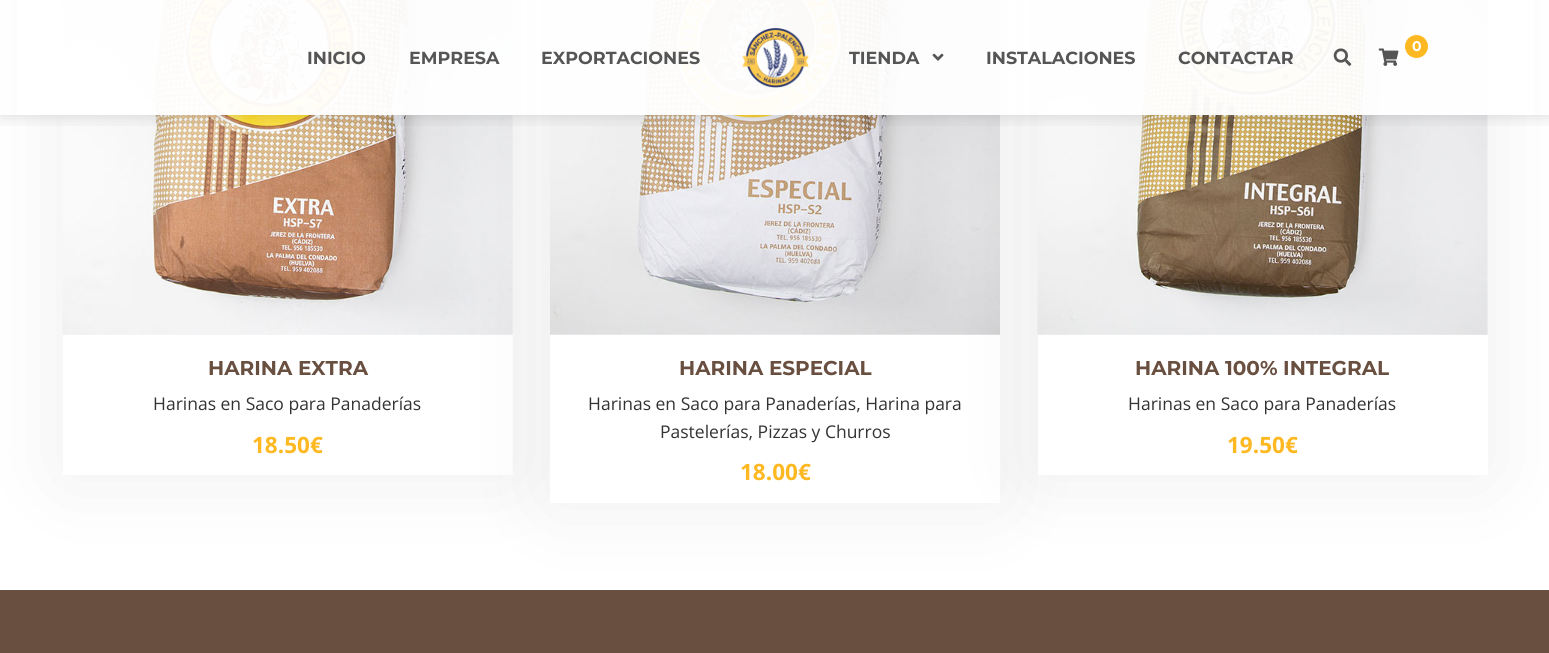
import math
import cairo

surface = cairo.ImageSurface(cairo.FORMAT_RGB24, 1549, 653)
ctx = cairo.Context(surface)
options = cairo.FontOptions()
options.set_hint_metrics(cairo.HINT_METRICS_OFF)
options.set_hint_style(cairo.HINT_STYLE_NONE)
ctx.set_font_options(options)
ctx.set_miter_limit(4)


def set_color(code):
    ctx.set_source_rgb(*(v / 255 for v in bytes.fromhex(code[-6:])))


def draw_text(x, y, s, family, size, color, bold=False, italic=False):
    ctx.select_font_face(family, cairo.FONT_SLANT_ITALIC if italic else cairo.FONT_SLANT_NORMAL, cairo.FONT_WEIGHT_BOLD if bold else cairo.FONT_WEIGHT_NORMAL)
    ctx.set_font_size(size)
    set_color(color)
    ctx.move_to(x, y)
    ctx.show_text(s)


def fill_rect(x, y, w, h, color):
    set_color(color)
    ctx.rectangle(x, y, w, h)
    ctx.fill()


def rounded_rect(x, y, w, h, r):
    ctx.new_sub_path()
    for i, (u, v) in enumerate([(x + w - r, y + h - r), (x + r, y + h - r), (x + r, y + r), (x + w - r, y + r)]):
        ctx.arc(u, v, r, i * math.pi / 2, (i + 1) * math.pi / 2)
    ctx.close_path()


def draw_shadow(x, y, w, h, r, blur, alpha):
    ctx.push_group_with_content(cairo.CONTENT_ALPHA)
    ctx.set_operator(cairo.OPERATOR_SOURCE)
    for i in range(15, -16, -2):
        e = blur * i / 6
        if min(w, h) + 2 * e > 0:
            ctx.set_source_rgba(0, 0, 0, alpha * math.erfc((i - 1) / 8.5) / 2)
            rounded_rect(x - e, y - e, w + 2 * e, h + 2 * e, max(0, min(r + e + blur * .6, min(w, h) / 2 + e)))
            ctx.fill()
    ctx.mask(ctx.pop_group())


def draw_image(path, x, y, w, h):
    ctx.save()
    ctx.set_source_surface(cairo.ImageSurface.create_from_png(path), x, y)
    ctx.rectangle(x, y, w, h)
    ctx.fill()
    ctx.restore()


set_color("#ffffff")
ctx.paint()
set_color("#0a0a0a")
draw_shadow(63, -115, 450, 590, 0, 46, 0.07)
fill_rect(70, 0, 436, 335, "#f8f8f8")
draw_image("assets/img5.png", 62, 0, 451, 335)
fill_rect(63, 335, 450, 140, "#ffffff")
set_color("#0a0a0a")
draw_shadow(550, -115, 450, 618, 0, 46, 0.07)
fill_rect(550, 334, 450, 169, "#ffffff")
draw_image("assets/img6.png", 550, 0, 450, 335)
set_color("#0a0a0a")
draw_shadow(1038, -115, 450, 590, 0, 46, 0.07)
fill_rect(1038, 0, 443, 335, "#f8f8f8")
draw_image("assets/img7.png", 1037, 0, 451, 335)
ctx.save()
ctx.rectangle(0, 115, 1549, 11)
ctx.clip()
set_color("#000000")
draw_shadow(0, 0, 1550, 115, 0, 9.5, 0.15)
ctx.restore()
ctx.set_source_rgba(1, 1, 1, 0.95)
ctx.rectangle(18, 0, 1515, 115)
ctx.fill()
draw_text(307, 64, "INICIO", "Montserrat", 17.5, "#555555", bold=True)
draw_text(409, 64, "EMPRESA", "Montserrat", 17.5, "#555555", bold=True)
draw_text(541, 64, "EXPORTACIONES", "Montserrat", 17.5, "#555555", bold=True)
draw_image("assets/img1.png", 742, 28, 67, 60)
set_color("#fdb822")
ctx.arc(1416.5, 46.5, 12, 0, 2 * math.pi)
ctx.fill_preserve()
set_color("#ffffff")
ctx.set_line_width(1)
ctx.stroke()
draw_text(1412, 51, "0", "Montserrat", 14, "#ffffff", bold=True)
draw_image("assets/img2.png", 1378, 48, 21, 18)
draw_text(849, 64, "TIENDA", "Montserrat", 17.5, "#555555", bold=True)
draw_image("assets/img3.png", 932, 53, 12, 8)
draw_text(986, 64, "INSTALACIONES", "Montserrat", 17.5, "#555555", bold=True)
draw_text(1178, 64, "CONTACTAR", "Montserrat", 17.5, "#555555", bold=True)
draw_image("assets/img4.png", 1333, 48, 19, 18)
draw_text(208, 375, "HARINA EXTRA", "Montserrat", 20, "#684f40", bold=True)
draw_text(153, 410, "Harinas en Saco para Panaderías", "Open Sans", 17.5, "#333333")
draw_text(252, 453, "18.50€", "Open Sans", 22.5, "#fdb822", bold=True)
draw_text(679, 375, "HARINA ESPECIAL", "Montserrat", 20, "#684f40", bold=True)
draw_text(588, 410, "Harinas en Saco para Panaderías, Harina para", "Open Sans", 17.5, "#333333")
draw_text(660, 438, "Pastelerías, Pizzas y Churros", "Open Sans", 17.5, "#333333")
draw_text(740, 480, "18.00€", "Open Sans", 22.5, "#fdb822", bold=True)
fill_rect(1038, 335, 450, 140, "#ffffff")
draw_text(1135, 375, "HARINA 100% INTEGRAL", "Montserrat", 20, "#684f40", bold=True)
draw_text(1128, 410, "Harinas en Saco para Panaderías", "Open Sans", 17.5, "#333333")
draw_text(1227, 453, "19.50€", "Open Sans", 22.5, "#fdb822", bold=True)
fill_rect(0, 590, 1549, 63, "#684f40")
surface.write_to_png("output.png")
